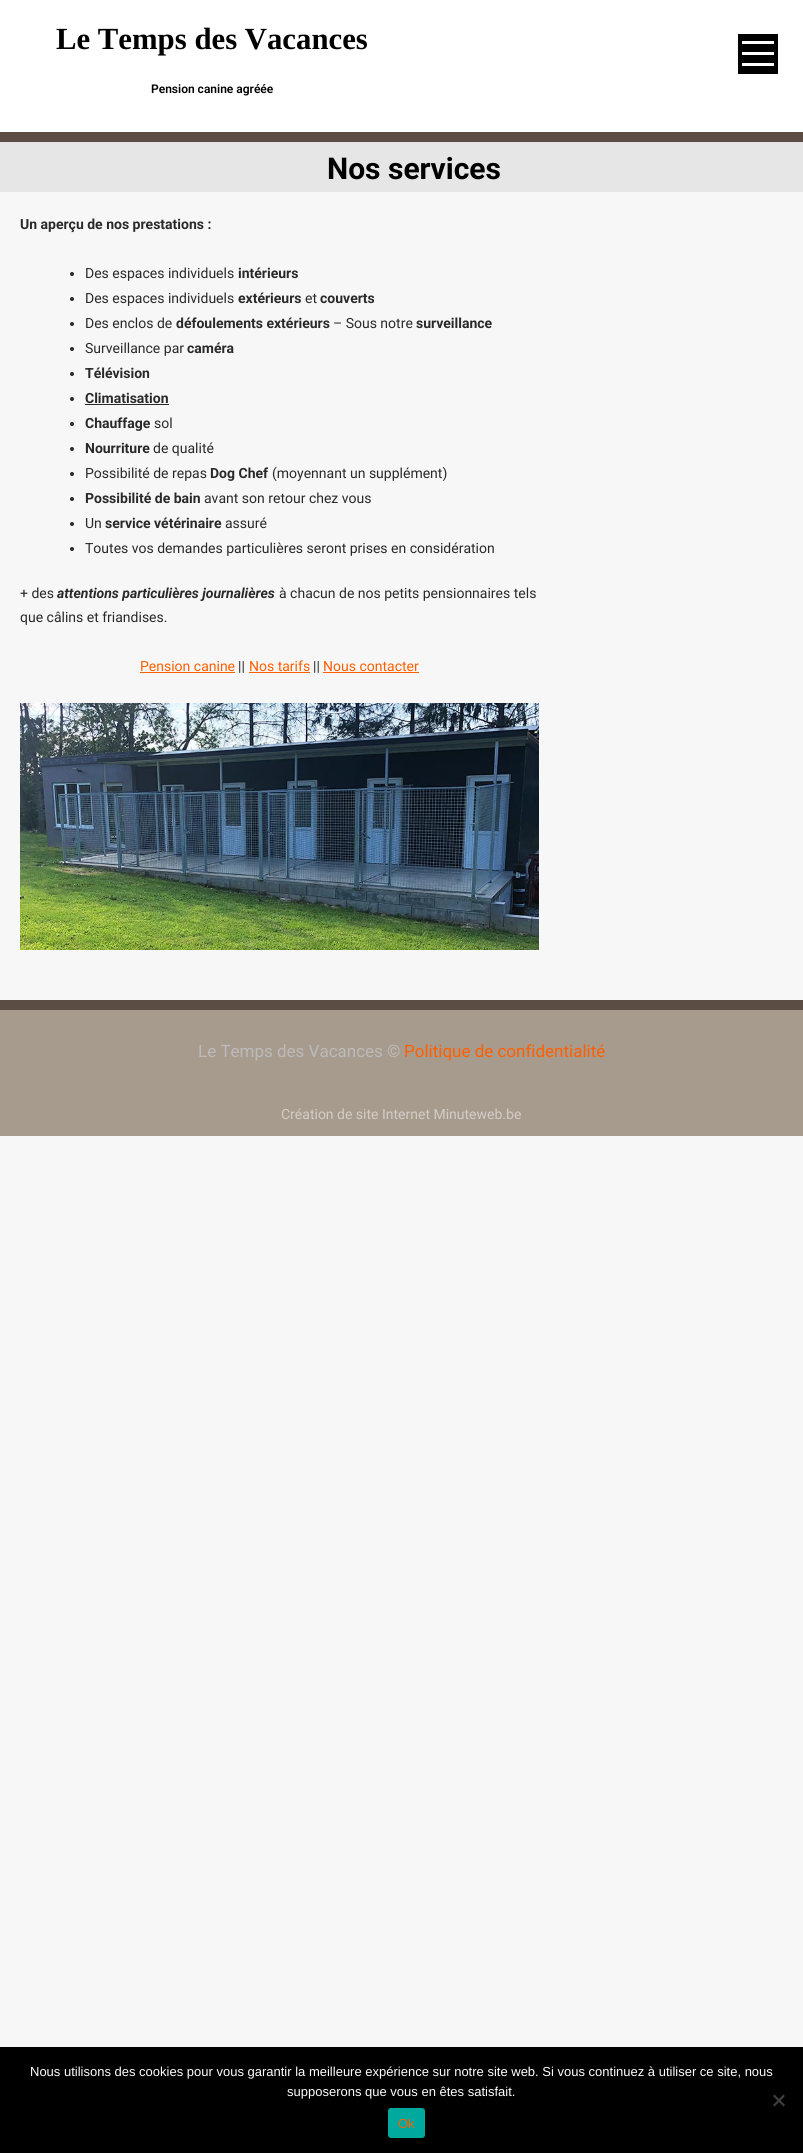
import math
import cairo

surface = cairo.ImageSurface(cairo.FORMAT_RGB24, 803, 2153)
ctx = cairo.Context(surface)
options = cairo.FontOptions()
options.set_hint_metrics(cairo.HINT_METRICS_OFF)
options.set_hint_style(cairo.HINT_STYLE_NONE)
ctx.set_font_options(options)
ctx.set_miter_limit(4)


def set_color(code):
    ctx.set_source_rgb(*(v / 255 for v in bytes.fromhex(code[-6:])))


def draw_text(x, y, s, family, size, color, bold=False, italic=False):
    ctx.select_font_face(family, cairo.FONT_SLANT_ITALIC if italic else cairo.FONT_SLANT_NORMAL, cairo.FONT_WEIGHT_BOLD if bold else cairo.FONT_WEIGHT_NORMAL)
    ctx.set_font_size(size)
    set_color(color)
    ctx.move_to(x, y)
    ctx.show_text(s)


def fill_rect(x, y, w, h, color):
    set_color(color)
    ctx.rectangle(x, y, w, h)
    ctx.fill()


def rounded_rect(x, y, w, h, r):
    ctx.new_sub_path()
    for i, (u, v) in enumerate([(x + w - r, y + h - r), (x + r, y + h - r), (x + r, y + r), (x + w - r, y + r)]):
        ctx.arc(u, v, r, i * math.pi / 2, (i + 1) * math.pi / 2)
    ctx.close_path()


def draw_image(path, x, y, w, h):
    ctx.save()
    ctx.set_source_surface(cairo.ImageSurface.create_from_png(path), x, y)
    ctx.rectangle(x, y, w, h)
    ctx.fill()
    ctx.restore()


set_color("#f7f7f7")
ctx.paint()
fill_rect(0, 0, 803, 132, "#ffffff")
draw_text(56, 49, "Le Temps des Vacances", "Liberation Serif", 30.75, "#000000", bold=True)
draw_text(151, 93, "Pension canine agréée", "Roboto SemiBold", 12, "#000000")
fill_rect(738, 34, 40, 40, "#000000")
fill_rect(742, 41, 32, 3, "#ffffff")
fill_rect(742, 52, 32, 3, "#ffffff")
fill_rect(742, 63, 32, 3, "#ffffff")
fill_rect(0, 132, 803, 10, "#5c4d44")
fill_rect(0, 142, 803, 50, "#e6e6e6")
draw_text(327, 179, "Nos services", "Roboto", 30, "#000000", bold=True)
draw_text(20, 229, "Un aperçu de nos prestations :", "Roboto", 14, "#292929", bold=True)
ctx.new_path()
ctx.arc(72, 274, 2, 0, 2 * math.pi)
ctx.fill()
draw_text(85, 278, "Des espaces individuels", "Roboto", 14, "#292929")
draw_text(238, 278, "intérieurs", "Roboto", 14, "#292929", bold=True)
ctx.new_path()
ctx.arc(72, 299, 2, 0, 2 * math.pi)
ctx.fill()
draw_text(85, 303, "Des espaces individuels", "Roboto", 14, "#292929")
draw_text(238, 303, "extérieurs", "Roboto", 14, "#292929", bold=True)
draw_text(305, 303, "et", "Roboto", 14, "#292929")
draw_text(320, 303, "couverts", "Roboto", 14, "#292929", bold=True)
ctx.new_path()
ctx.arc(72, 324, 2, 0, 2 * math.pi)
ctx.fill()
draw_text(85, 328, "Des enclos de", "Roboto", 14, "#292929")
draw_text(176, 328, "défoulements extérieurs", "Roboto", 14, "#292929", bold=True)
draw_text(333, 328, "– Sous notre", "Roboto", 14, "#292929")
draw_text(416, 328, "surveillance", "Roboto", 14, "#292929", bold=True)
ctx.new_path()
ctx.arc(72, 349, 2, 0, 2 * math.pi)
ctx.fill()
draw_text(85, 353, "Surveillance par", "Roboto", 14, "#292929")
draw_text(187, 353, "caméra", "Roboto", 14, "#292929", bold=True)
ctx.new_path()
ctx.arc(72, 374, 2, 0, 2 * math.pi)
ctx.fill()
draw_text(85, 378, "Télévision", "Roboto", 14, "#292929", bold=True)
ctx.new_path()
ctx.arc(72, 399, 2, 0, 2 * math.pi)
ctx.fill()
draw_text(85, 403, "Climatisation", "Roboto", 14, "#292929", bold=True)
fill_rect(85, 404, 84, 1, "#292929")
ctx.new_path()
ctx.arc(72, 424, 2, 0, 2 * math.pi)
ctx.fill()
draw_text(85, 428, "Chauffage", "Roboto", 14, "#292929", bold=True)
draw_text(154, 428, "sol", "Roboto", 14, "#292929")
ctx.new_path()
ctx.arc(72, 449, 2, 0, 2 * math.pi)
ctx.fill()
draw_text(85, 453, "Nourriture", "Roboto", 14, "#292929", bold=True)
draw_text(153, 453, "de qualité", "Roboto", 14, "#292929")
ctx.new_path()
ctx.arc(72, 474, 2, 0, 2 * math.pi)
ctx.fill()
draw_text(85, 478, "Possibilité de repas", "Roboto", 14, "#292929")
draw_text(210, 478, "Dog Chef", "Roboto", 14, "#292929", bold=True)
draw_text(272, 478, "(moyennant un supplément)", "Roboto", 14, "#292929")
ctx.new_path()
ctx.arc(72, 499, 2, 0, 2 * math.pi)
ctx.fill()
draw_text(85, 503, "Possibilité de bain", "Roboto", 14, "#292929", bold=True)
draw_text(204, 503, "avant son retour chez vous", "Roboto", 14, "#292929")
ctx.new_path()
ctx.arc(72, 524, 2, 0, 2 * math.pi)
ctx.fill()
draw_text(85, 528, "Un", "Roboto", 14, "#292929")
draw_text(105, 528, "service vétérinaire", "Roboto", 14, "#292929", bold=True)
draw_text(225, 528, "assuré", "Roboto", 14, "#292929")
ctx.new_path()
ctx.arc(72, 549, 2, 0, 2 * math.pi)
ctx.fill()
draw_text(85, 553, "Toutes vos demandes particulières seront prises en considération", "Roboto", 14, "#292929")
draw_text(20, 598, "+ des", "Roboto", 14, "#292929")
draw_text(57, 598, "attentions particulières journalières", "Roboto", 14, "#292929", bold=True, italic=True)
draw_text(279, 598, "à chacun de nos petits pensionnaires tels", "Roboto", 14, "#292929")
draw_text(20, 622, "que câlins et friandises.", "Roboto", 14, "#292929")
draw_text(140, 671, "Pension canine", "Roboto", 14, "#ff5f00")
fill_rect(140, 672, 95, 1, "#ff5f00")
draw_text(238, 671, "||", "Roboto", 14, "#292929")
draw_text(249, 671, "Nos tarifs", "Roboto", 14, "#ff5f00")
fill_rect(249, 672, 61, 1, "#ff5f00")
draw_text(313, 671, "||", "Roboto", 14, "#292929")
draw_text(323, 671, "Nous contacter", "Roboto", 14, "#ff5f00")
fill_rect(323, 672, 96, 1, "#ff5f00")
draw_image("assets/img1.png", 20, 703, 519, 247)
fill_rect(0, 1000, 803, 10, "#5c4d44")
fill_rect(0, 1010, 803, 126, "#a79b8d")
draw_text(198, 1057, "Le Temps des Vacances ©", "Roboto", 17, "#bcbbbb")
draw_text(404, 1057, "Politique de confidentialité", "Roboto", 17, "#ff5f00")
draw_text(281, 1119, "Création de site Internet Minuteweb.be", "Roboto", 14, "#d3cdc6")
fill_rect(0, 2047, 803, 106, "#000000")
draw_text(30, 2076, "Nous utilisons des cookies pour vous garantir la meilleure expérience sur notre site web. Si vous continuez à utiliser ce site, nous", "Liberation Sans", 13, "#ffffff")
draw_text(287, 2096, "supposerons que vous en êtes satisfait.", "Liberation Sans", 13, "#ffffff")
set_color("#404040")
ctx.new_path()
ctx.move_to(783.5, 2094.5)
ctx.line_to(785, 2096)
ctx.line_to(774.5, 2106.5)
ctx.line_to(773, 2105)
ctx.close_path()
ctx.fill()
ctx.new_path()
ctx.move_to(773, 2096)
ctx.line_to(774.5, 2094.5)
ctx.line_to(785, 2105)
ctx.line_to(783.5, 2106.5)
ctx.close_path()
ctx.fill()
set_color("#00a99d")
rounded_rect(388, 2108, 37, 30, 3)
ctx.fill()
draw_text(398, 2128, "Ok", "Liberation Sans", 13, "#ff5f00")
surface.write_to_png("output.png")
